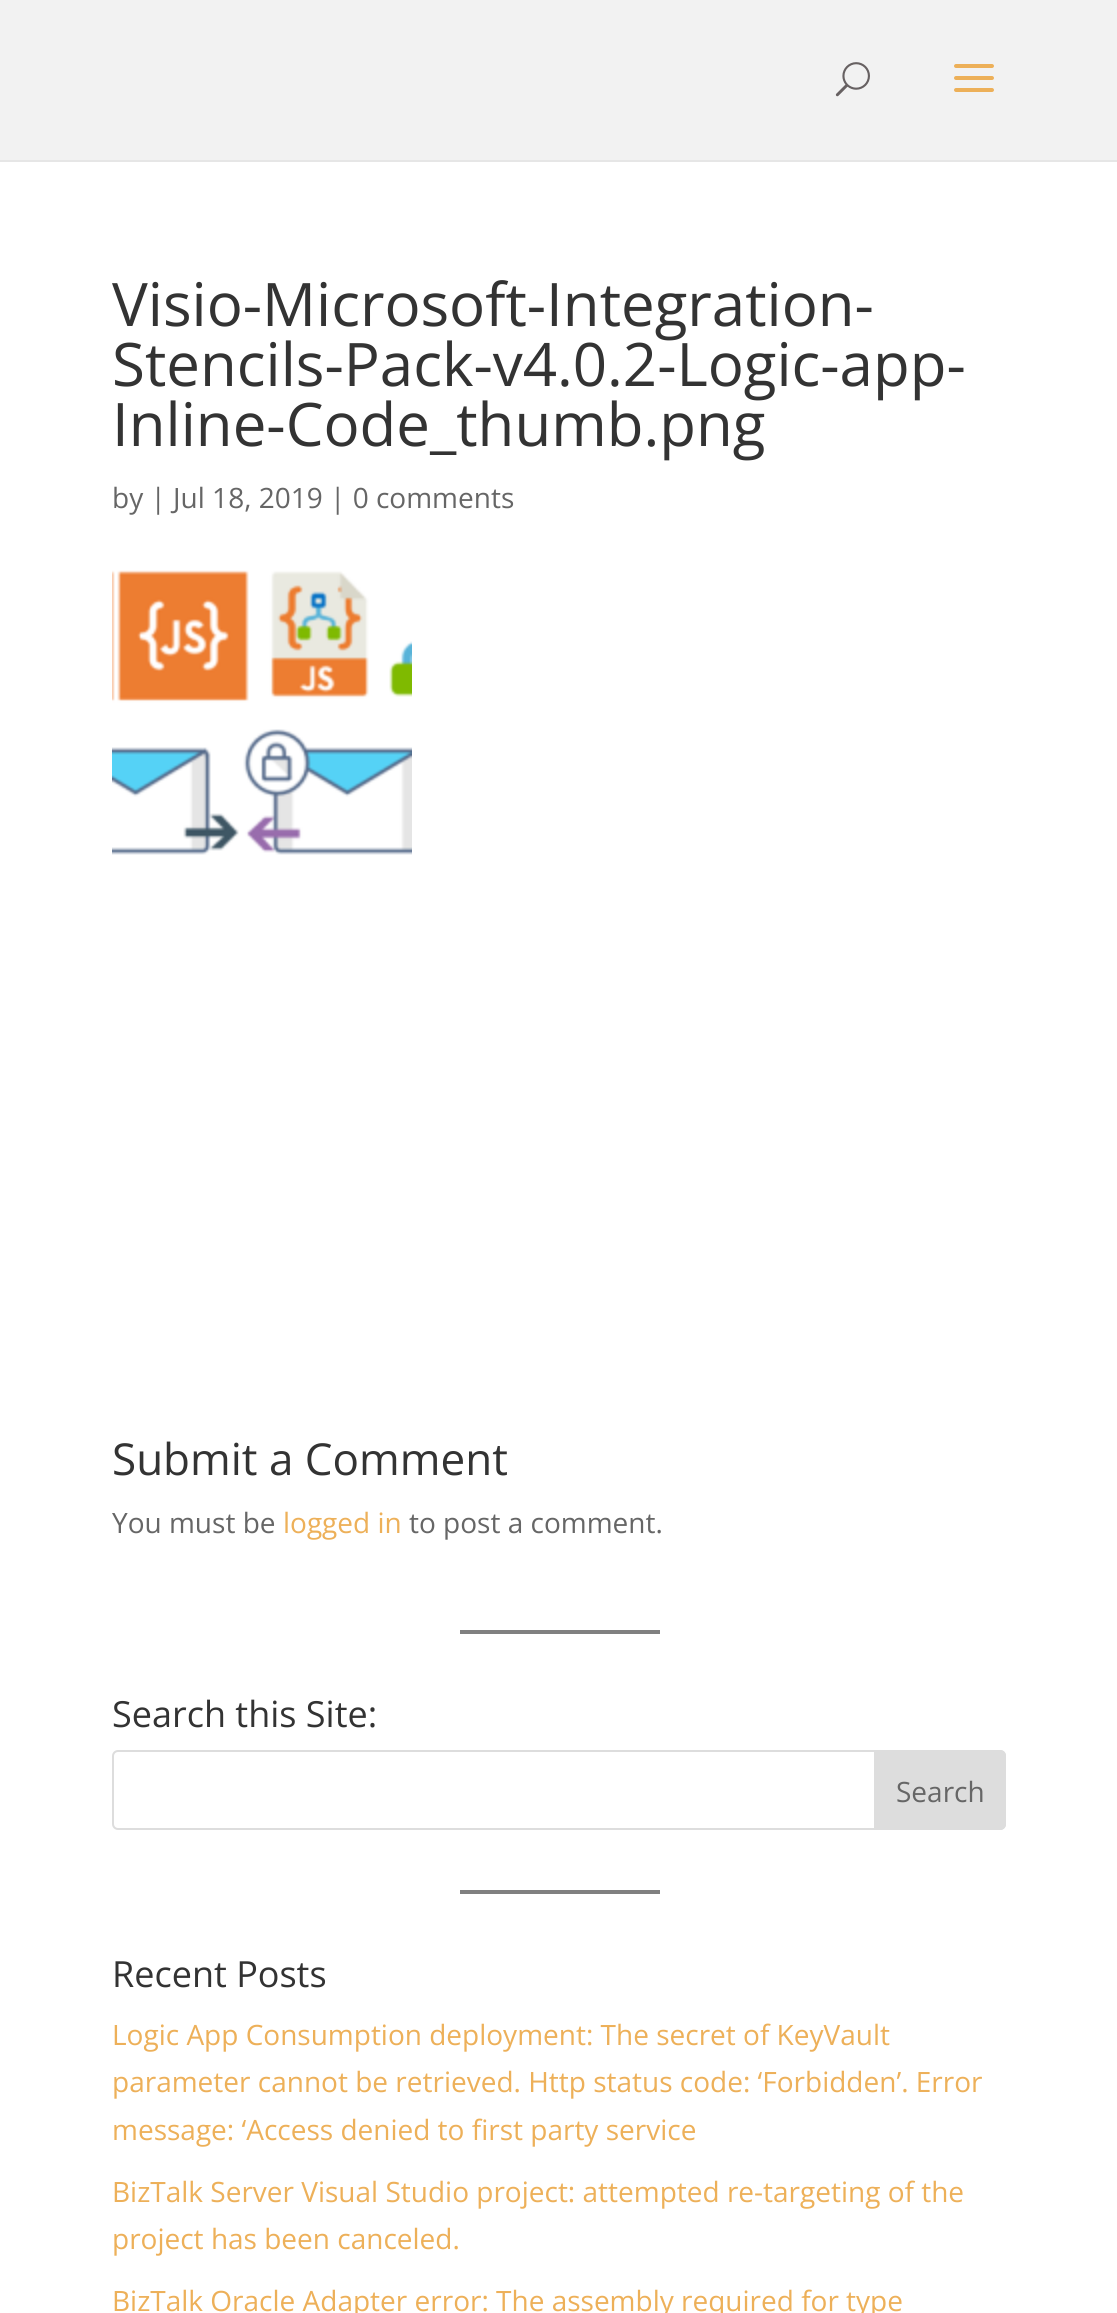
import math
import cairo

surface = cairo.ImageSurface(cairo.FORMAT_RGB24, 1117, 2313)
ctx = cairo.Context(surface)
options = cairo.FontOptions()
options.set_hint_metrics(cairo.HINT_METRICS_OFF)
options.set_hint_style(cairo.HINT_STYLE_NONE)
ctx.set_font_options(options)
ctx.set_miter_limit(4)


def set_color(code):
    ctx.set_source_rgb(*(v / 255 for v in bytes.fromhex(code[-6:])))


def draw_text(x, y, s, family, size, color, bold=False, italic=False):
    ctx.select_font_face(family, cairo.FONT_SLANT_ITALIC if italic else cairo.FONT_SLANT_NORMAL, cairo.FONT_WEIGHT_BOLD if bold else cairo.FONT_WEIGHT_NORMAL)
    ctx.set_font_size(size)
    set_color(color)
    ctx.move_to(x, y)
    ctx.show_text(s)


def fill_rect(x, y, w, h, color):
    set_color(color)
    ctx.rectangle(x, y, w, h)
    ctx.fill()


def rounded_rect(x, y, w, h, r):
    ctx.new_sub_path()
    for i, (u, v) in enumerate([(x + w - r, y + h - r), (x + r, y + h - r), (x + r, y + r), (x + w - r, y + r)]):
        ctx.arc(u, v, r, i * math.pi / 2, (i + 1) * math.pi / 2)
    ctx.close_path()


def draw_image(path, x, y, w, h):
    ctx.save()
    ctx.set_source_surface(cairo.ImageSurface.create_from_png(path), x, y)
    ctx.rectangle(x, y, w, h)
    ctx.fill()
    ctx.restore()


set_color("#ffffff")
ctx.paint()
fill_rect(0, 160, 1117, 2, "#e6e6e6")
fill_rect(0, 0, 1117, 160, "#f2f2f2")
draw_image("assets/img1.png", 835, 62, 35, 35)
draw_image("assets/img2.png", 954, 64, 40, 28)
draw_text(112, 326, "Visio-Microsoft-Integration-", "Open Sans", 60, "#333333")
draw_text(112, 386, "Stencils-Pack-v4.0.2-Logic-app-", "Open Sans", 60, "#333333")
draw_text(112, 446, "Inline-Code_thumb.png", "Open Sans", 60, "#333333")
draw_text(112, 508, "by | Jul 18, 2019 | 0 comments", "Open Sans", 28, "#666666")
draw_image("assets/img3.png", 112, 570, 300, 285)
draw_text(112, 1475, "Submit a Comment", "Open Sans", 44, "#333333")
draw_text(112, 1533, "You must be", "Open Sans", 28, "#666666")
draw_text(283, 1533, "logged in", "Open Sans", 28, "#edb059")
draw_text(409, 1533, "to post a comment.", "Open Sans", 28, "#666666")
fill_rect(460, 1630, 200, 4, "#808080")
draw_text(112, 1727, "Search this Site:", "Open Sans", 36, "#333333")
rounded_rect(113, 1751, 892, 78, 5)
set_color("#dddddd")
ctx.stroke()
ctx.new_path()
ctx.move_to(875, 1751)
ctx.line_to(1000, 1751)
ctx.curve_to(1003, 1751, 1005, 1753, 1005, 1756)
ctx.line_to(1005, 1824)
ctx.curve_to(1005, 1827, 1003, 1829, 1000, 1829)
ctx.line_to(875, 1829)
ctx.close_path()
ctx.fill_preserve()
ctx.stroke()
draw_text(896, 1802, "Search", "Open Sans", 28, "#666666")
fill_rect(460, 1890, 200, 4, "#808080")
draw_text(112, 1987, "Recent Posts", "Open Sans", 36, "#333333")
draw_text(112, 2045, "Logic App Consumption deployment: The secret of KeyVault", "Open Sans", 28, "#edb059")
draw_text(112, 2092, "parameter cannot be retrieved. Http status code: ‘Forbidden’. Error", "Open Sans", 28, "#edb059")
draw_text(112, 2140, "message: ‘Access denied to first party service", "Open Sans", 28, "#edb059")
draw_text(112, 2202, "BizTalk Server Visual Studio project: attempted re-targeting of the", "Open Sans", 28, "#edb059")
draw_text(112, 2249, "project has been canceled.", "Open Sans", 28, "#edb059")
draw_text(112, 2311, "BizTalk Oracle Adapter error: The assembly required for type", "Open Sans", 28, "#edb059")
surface.write_to_png("output.png")
